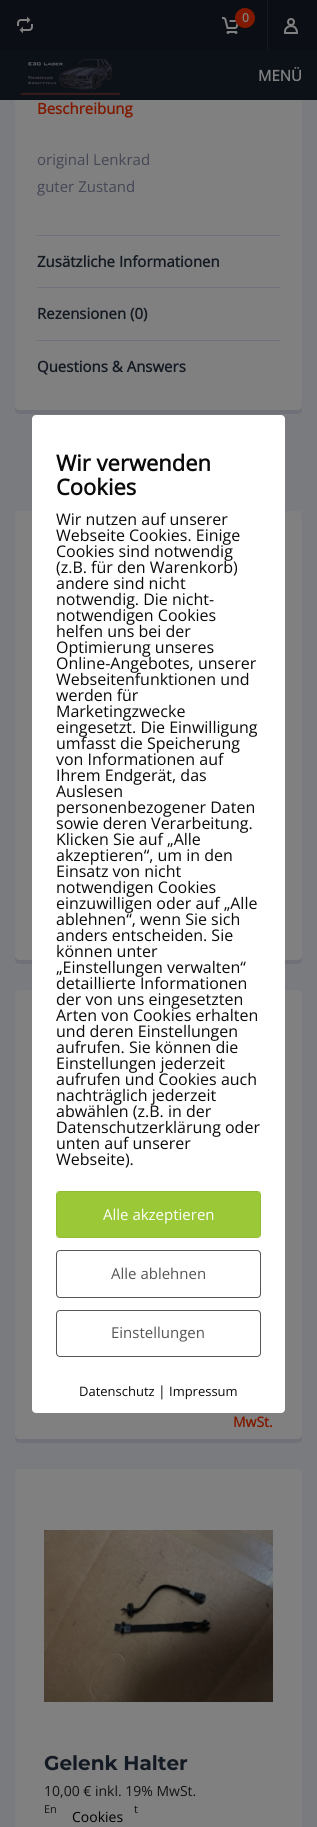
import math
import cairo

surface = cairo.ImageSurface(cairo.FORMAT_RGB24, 317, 1827)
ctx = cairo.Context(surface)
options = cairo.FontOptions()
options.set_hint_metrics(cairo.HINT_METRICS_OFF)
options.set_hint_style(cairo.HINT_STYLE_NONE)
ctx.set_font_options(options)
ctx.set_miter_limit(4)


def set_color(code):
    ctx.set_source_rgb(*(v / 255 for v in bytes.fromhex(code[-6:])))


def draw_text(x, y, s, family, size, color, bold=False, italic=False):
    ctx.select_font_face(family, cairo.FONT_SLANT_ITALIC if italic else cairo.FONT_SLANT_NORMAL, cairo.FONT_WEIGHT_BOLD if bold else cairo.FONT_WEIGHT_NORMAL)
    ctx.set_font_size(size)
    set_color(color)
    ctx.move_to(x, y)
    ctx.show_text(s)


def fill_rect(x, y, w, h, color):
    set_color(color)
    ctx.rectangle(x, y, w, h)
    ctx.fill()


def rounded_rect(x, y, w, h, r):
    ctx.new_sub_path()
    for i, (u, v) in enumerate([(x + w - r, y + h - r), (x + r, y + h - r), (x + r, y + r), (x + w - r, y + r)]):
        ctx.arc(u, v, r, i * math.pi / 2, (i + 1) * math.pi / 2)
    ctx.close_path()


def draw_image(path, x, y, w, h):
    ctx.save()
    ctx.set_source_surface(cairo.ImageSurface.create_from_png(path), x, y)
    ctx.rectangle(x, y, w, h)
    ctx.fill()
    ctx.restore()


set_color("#7a7b7e")
ctx.paint()
set_color("#808080")
rounded_rect(15, 21, 287, 393, 4)
ctx.fill()
fill_rect(0, 50, 317, 50, "#0c1017")
fill_rect(0, 0, 317, 50, "#0b0e14")
draw_image("assets/img1.png", 17, 16, 16, 18)
draw_image("assets/img2.png", 222, 17, 17, 17)
set_color("#801900")
ctx.arc(245, 18, 10, 0, 2 * math.pi)
ctx.fill()
draw_text(242, 22, "0", "Open Sans", 12, "#808080", bold=True)
fill_rect(267, 0, 1, 50, "#131a25")
ctx.new_path()
ctx.move_to(285, 31.5)
ctx.curve_to(285, 25, 297, 23, 297, 33)
ctx.line_to(285, 33)
ctx.close_path()
set_color("#808080")
ctx.stroke()
ctx.arc(291, 22, 3, 0, 2 * math.pi)
ctx.stroke()
draw_image("assets/img3.png", 20, 58, 101, 37)
draw_text(258, 81, "MENÜ", "Open Sans", 15, "#808080", bold=True)
set_color("#707178")
ctx.new_path()
ctx.move_to(15, 406)
ctx.line_to(15, 410)
ctx.curve_to(15, 412, 17, 414, 19, 414)
ctx.line_to(298, 414)
ctx.curve_to(300, 414, 302, 412, 302, 410)
ctx.line_to(302, 406)
ctx.curve_to(302, 408, 300, 410, 298, 410)
ctx.line_to(19, 410)
ctx.curve_to(17, 410, 15, 408, 15, 406)
ctx.close_path()
ctx.fill()
draw_text(37, 114, "Beschreibung", "Open Sans", 15, "#801900", bold=True)
draw_text(37, 165, "original Lenkrad", "Open Sans", 15, "#434654")
draw_text(37, 192, "guter Zustand", "Open Sans", 15, "#434654")
fill_rect(37, 235, 243, 1, "#70727b")
draw_text(37, 267, "Zusätzliche Informationen", "Open Sans", 15, "#141a23", bold=True)
fill_rect(37, 287, 243, 1, "#70727b")
draw_text(37, 319, "Rezensionen (0)", "Open Sans", 15, "#141a23", bold=True)
fill_rect(37, 340, 243, 1, "#70727b")
draw_text(37, 372, "Questions & Answers", "Open Sans", 15, "#141a23", bold=True)
set_color("#808080")
rounded_rect(15, 511, 287, 453, 4)
ctx.fill()
set_color("#707178")
ctx.new_path()
ctx.move_to(15, 956)
ctx.line_to(15, 960)
ctx.curve_to(15, 962, 17, 964, 19, 964)
ctx.line_to(298, 964)
ctx.curve_to(300, 964, 302, 962, 302, 960)
ctx.line_to(302, 956)
ctx.curve_to(302, 958, 300, 960, 298, 960)
ctx.line_to(19, 960)
ctx.curve_to(17, 960, 15, 958, 15, 956)
ctx.close_path()
ctx.fill()
set_color("#808080")
rounded_rect(15, 990, 287, 453, 4)
ctx.fill()
set_color("#707178")
ctx.new_path()
ctx.move_to(15, 1435)
ctx.line_to(15, 1439)
ctx.curve_to(15, 1441, 17, 1443, 19, 1443)
ctx.line_to(298, 1443)
ctx.curve_to(300, 1443, 302, 1441, 302, 1439)
ctx.line_to(302, 1435)
ctx.curve_to(302, 1437, 300, 1439, 298, 1439)
ctx.line_to(19, 1439)
ctx.curve_to(17, 1439, 15, 1437, 15, 1435)
ctx.close_path()
ctx.fill()
draw_text(233, 1427, "MwSt.", "Open Sans", 14, "#801900", bold=True)
set_color("#808080")
rounded_rect(15, 1469, 287, 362, 4)
ctx.fill()
draw_image("assets/img4.png", 44, 1530, 229, 172)
draw_text(44, 1770, "Gelenk Halter", "Montserrat", 20, "#141a23", bold=True)
draw_text(44, 1796, "10,00 € inkl. 19% MwSt.", "Open Sans", 14, "#111315")
draw_text(44, 1813, "En", "Open Sans", 11, "#111315")
draw_text(134, 1813, "t", "Open Sans", 11, "#111315")
set_color("#ffffff")
rounded_rect(32, 415, 253, 998, 4)
ctx.fill()
draw_text(56, 471, "Wir verwenden", "Open Sans", 22, "#0a0a0a", bold=True)
draw_text(56, 495, "Cookies", "Open Sans", 22, "#0a0a0a", bold=True)
draw_text(56, 525, "Wir nutzen auf unserer", "Open Sans", 16, "#0a0a0a")
draw_text(56, 541, "Webseite Cookies. Einige", "Open Sans", 16, "#0a0a0a")
draw_text(56, 557, "Cookies sind notwendig", "Open Sans", 16, "#0a0a0a")
draw_text(56, 573, "(z.B. für den Warenkorb)", "Open Sans", 16, "#0a0a0a")
draw_text(56, 589, "andere sind nicht", "Open Sans", 16, "#0a0a0a")
draw_text(56, 605, "notwendig. Die nicht-", "Open Sans", 16, "#0a0a0a")
draw_text(56, 621, "notwendigen Cookies", "Open Sans", 16, "#0a0a0a")
draw_text(56, 637, "helfen uns bei der", "Open Sans", 16, "#0a0a0a")
draw_text(56, 653, "Optimierung unseres", "Open Sans", 16, "#0a0a0a")
draw_text(56, 669, "Online-Angebotes, unserer", "Open Sans", 16, "#0a0a0a")
draw_text(56, 685, "Webseitenfunktionen und", "Open Sans", 16, "#0a0a0a")
draw_text(56, 701, "werden für", "Open Sans", 16, "#0a0a0a")
draw_text(56, 717, "Marketingzwecke", "Open Sans", 16, "#0a0a0a")
draw_text(56, 733, "eingesetzt. Die Einwilligung", "Open Sans", 16, "#0a0a0a")
draw_text(56, 749, "umfasst die Speicherung", "Open Sans", 16, "#0a0a0a")
draw_text(56, 765, "von Informationen auf", "Open Sans", 16, "#0a0a0a")
draw_text(56, 781, "Ihrem Endgerät, das", "Open Sans", 16, "#0a0a0a")
draw_text(56, 797, "Auslesen", "Open Sans", 16, "#0a0a0a")
draw_text(56, 813, "personenbezogener Daten", "Open Sans", 16, "#0a0a0a")
draw_text(56, 829, "sowie deren Verarbeitung.", "Open Sans", 16, "#0a0a0a")
draw_text(56, 845, "Klicken Sie auf „Alle", "Open Sans", 16, "#0a0a0a")
draw_text(56, 861, "akzeptieren“, um in den", "Open Sans", 16, "#0a0a0a")
draw_text(56, 877, "Einsatz von nicht", "Open Sans", 16, "#0a0a0a")
draw_text(56, 893, "notwendigen Cookies", "Open Sans", 16, "#0a0a0a")
draw_text(56, 909, "einzuwilligen oder auf „Alle", "Open Sans", 16, "#0a0a0a")
draw_text(56, 925, "ablehnen“, wenn Sie sich", "Open Sans", 16, "#0a0a0a")
draw_text(56, 941, "anders entscheiden. Sie", "Open Sans", 16, "#0a0a0a")
draw_text(56, 957, "können unter", "Open Sans", 16, "#0a0a0a")
draw_text(56, 973, "„Einstellungen verwalten“", "Open Sans", 16, "#0a0a0a")
draw_text(56, 989, "detaillierte Informationen", "Open Sans", 16, "#0a0a0a")
draw_text(56, 1005, "der von uns eingesetzten", "Open Sans", 16, "#0a0a0a")
draw_text(56, 1021, "Arten von Cookies erhalten", "Open Sans", 16, "#0a0a0a")
draw_text(56, 1037, "und deren Einstellungen", "Open Sans", 16, "#0a0a0a")
draw_text(56, 1053, "aufrufen. Sie können die", "Open Sans", 16, "#0a0a0a")
draw_text(56, 1069, "Einstellungen jederzeit", "Open Sans", 16, "#0a0a0a")
draw_text(56, 1085, "aufrufen und Cookies auch", "Open Sans", 16, "#0a0a0a")
draw_text(56, 1101, "nachträglich jederzeit", "Open Sans", 16, "#0a0a0a")
draw_text(56, 1117, "abwählen (z.B. in der", "Open Sans", 16, "#0a0a0a")
draw_text(56, 1133, "Datenschutzerklärung oder", "Open Sans", 16, "#0a0a0a")
draw_text(56, 1149, "unten auf unserer", "Open Sans", 16, "#0a0a0a")
draw_text(56, 1165, "Webseite).", "Open Sans", 16, "#0a0a0a")
set_color("#9ac836")
rounded_rect(56, 1191, 205, 47, 4)
ctx.fill()
ctx.rectangle(56.5, 1191.5, 204, 46)
ctx.set_source_rgba(0, 0, 0, 0.06)
ctx.set_line_width(1)
ctx.stroke()
draw_text(103, 1220, "Alle akzeptieren", "Open Sans", 15, "#ffffff")
rounded_rect(56.5, 1250.5, 204, 47, 3.5)
set_color("#555555")
ctx.stroke()
draw_text(111, 1279, "Alle ablehnen", "Open Sans", 15, "#555555")
rounded_rect(56.5, 1310.5, 204, 46, 3.5)
ctx.stroke()
draw_text(111, 1338, "Einstellungen", "Open Sans", 15, "#555555")
draw_text(79, 1396, "Datenschutz", "Open Sans", 13, "#0a0a0a")
draw_text(158, 1396, "|", "Open Sans", 14, "#0a0a0a")
draw_text(169, 1396, "Impressum", "Open Sans", 13, "#0a0a0a")
set_color("#808080")
ctx.new_path()
ctx.move_to(64, 1807)
ctx.line_to(131, 1807)
ctx.curve_to(133, 1807, 135, 1809, 135, 1811)
ctx.line_to(135, 1827)
ctx.line_to(60, 1827)
ctx.line_to(60, 1811)
ctx.curve_to(60, 1809, 62, 1807, 64, 1807)
ctx.close_path()
ctx.fill()
draw_text(72, 1822, "Cookies", "Open Sans", 14, "#000000")
surface.write_to_png("output.png")
